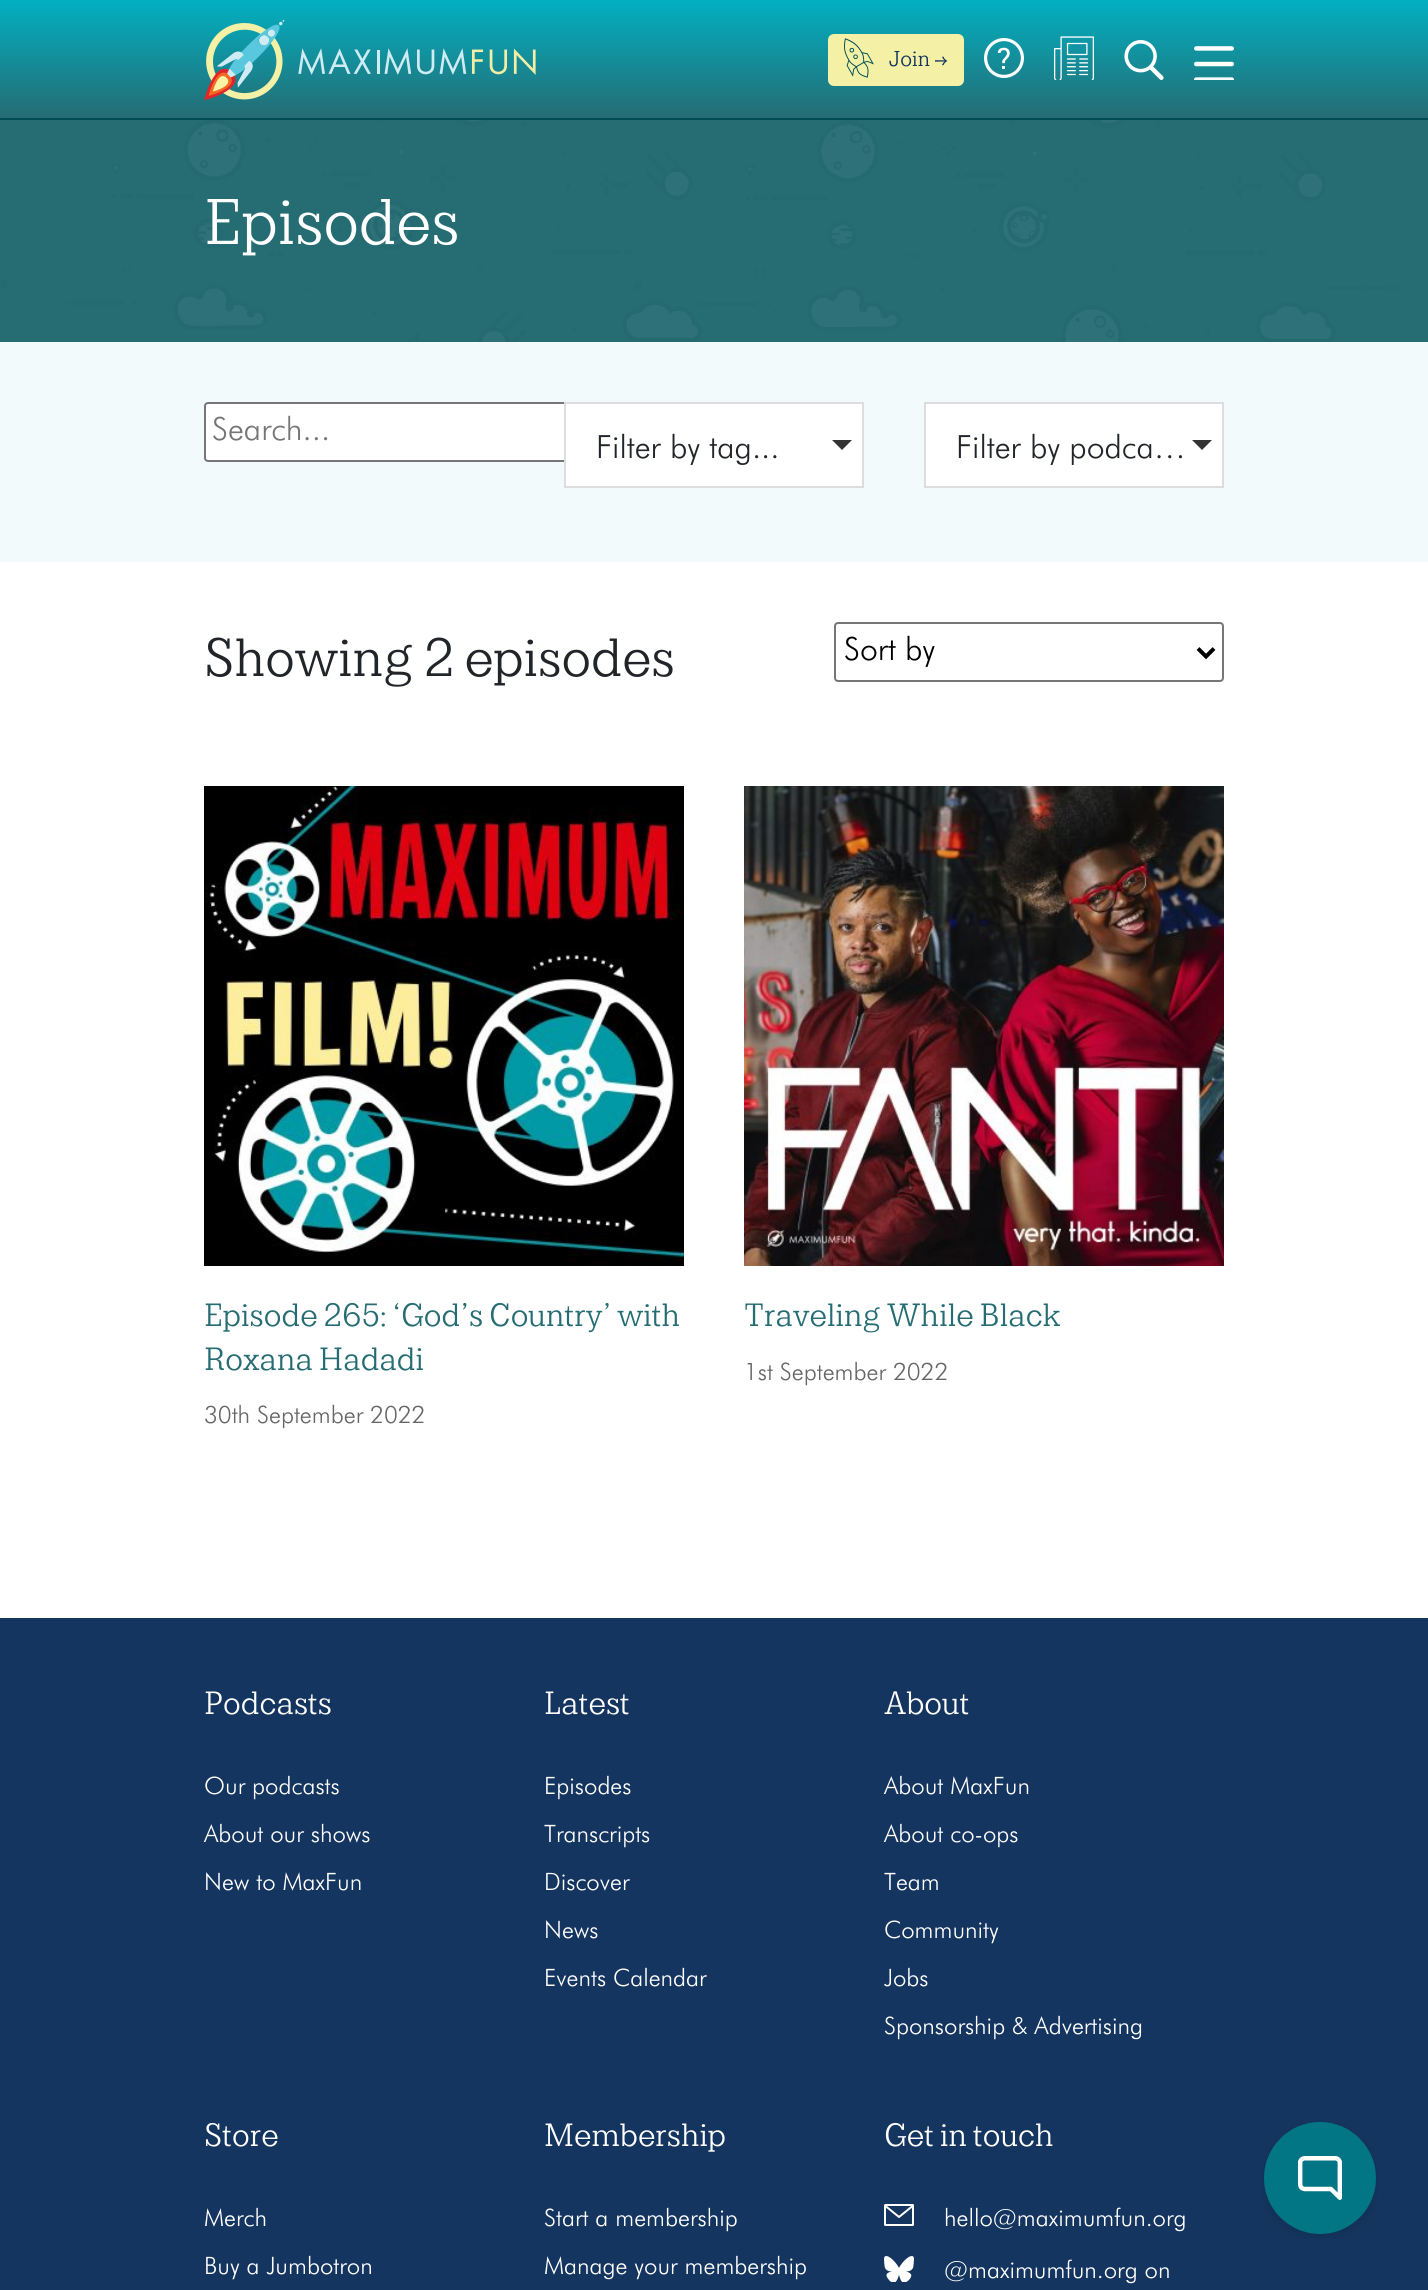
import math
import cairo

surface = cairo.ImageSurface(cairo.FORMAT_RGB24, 1428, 2290)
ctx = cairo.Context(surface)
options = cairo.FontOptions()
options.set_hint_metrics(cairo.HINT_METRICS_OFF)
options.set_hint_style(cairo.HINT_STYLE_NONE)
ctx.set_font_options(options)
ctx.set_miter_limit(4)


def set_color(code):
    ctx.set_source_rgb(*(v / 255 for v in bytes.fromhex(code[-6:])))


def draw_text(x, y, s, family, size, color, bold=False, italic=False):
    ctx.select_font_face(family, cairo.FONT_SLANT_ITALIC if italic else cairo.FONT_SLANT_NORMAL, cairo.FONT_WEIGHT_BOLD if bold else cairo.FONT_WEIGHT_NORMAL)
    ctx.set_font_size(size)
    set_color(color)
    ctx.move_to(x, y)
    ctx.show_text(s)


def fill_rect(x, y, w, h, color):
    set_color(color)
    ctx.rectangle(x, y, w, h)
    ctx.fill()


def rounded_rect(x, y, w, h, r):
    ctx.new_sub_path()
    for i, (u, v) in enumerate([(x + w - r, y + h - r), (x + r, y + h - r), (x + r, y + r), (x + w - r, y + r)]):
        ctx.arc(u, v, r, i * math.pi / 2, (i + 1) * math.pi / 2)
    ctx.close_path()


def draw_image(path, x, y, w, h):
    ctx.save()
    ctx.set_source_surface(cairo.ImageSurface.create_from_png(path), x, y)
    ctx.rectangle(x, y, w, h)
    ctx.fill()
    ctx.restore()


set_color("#14355f")
ctx.paint()
draw_image("assets/img1.png", 0, 120, 1428, 222)
gradient = cairo.LinearGradient(714, 0, 714, 118)
gradient.add_color_stop_rgba(0, 0.008, 0.69, 0.761, 1)
gradient.add_color_stop_rgba(1, 0.145, 0.424, 0.451, 1)
ctx.set_source(gradient)
ctx.rectangle(0, 0, 1428, 118)
ctx.fill()
fill_rect(0, 118, 1428, 2, "#014d55")
draw_image("assets/img2.png", 204, 20, 332, 80)
set_color("#f4f1a6")
rounded_rect(828, 34, 136, 52, 6)
ctx.fill()
draw_image("assets/img3.png", 844, 38, 30, 40)
draw_text(889, 66, "Join →", "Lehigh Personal", 24, "#14355f")
draw_image("assets/img4.png", 984, 38, 40, 40)
draw_image("assets/img5.png", 1054, 36, 40, 44)
draw_image("assets/img6.png", 1124, 40, 40, 40)
draw_image("assets/img7.png", 1194, 46, 40, 34)
draw_text(204, 244, "Episodes", "Lehigh Personal", 72, "#ffffff")
fill_rect(0, 342, 1428, 220, "#f3fafc")
set_color("#ffffff")
rounded_rect(205, 403, 478, 58, 3)
ctx.fill_preserve()
set_color("#767676")
ctx.stroke()
draw_text(212, 440, "Search...", "Futura Light", 32, "#757575")
set_color("#ffffff")
ctx.rectangle(565, 403, 298, 84)
ctx.fill_preserve()
set_color("#dddddd")
ctx.stroke()
draw_text(596, 458, "Filter by tag...", "Futura Light", 32, "#212529")
set_color("#333333")
ctx.new_path()
ctx.move_to(832, 440)
ctx.line_to(852, 440)
ctx.line_to(842, 450)
ctx.close_path()
ctx.fill()
set_color("#ffffff")
ctx.rectangle(925, 403, 298, 84)
ctx.fill_preserve()
set_color("#dddddd")
ctx.stroke()
draw_text(956, 458, "Filter by podca…", "Futura Light", 32, "#212529")
set_color("#333333")
ctx.new_path()
ctx.move_to(1192, 440)
ctx.line_to(1212, 440)
ctx.line_to(1202, 450)
ctx.close_path()
ctx.fill()
fill_rect(0, 562, 1428, 1056, "#ffffff")
draw_text(204, 676, "Showing 2 episodes", "Lehigh Personal", 60, "#212529")
rounded_rect(835, 623, 388, 58, 3)
set_color("#767676")
ctx.stroke()
ctx.new_path()
ctx.move_to(1198, 648.5)
ctx.line_to(1206, 656.5)
ctx.line_to(1214, 648.5)
set_color("#000000")
ctx.set_line_width(4)
ctx.stroke()
draw_text(844, 660, "Sort by", "Futura Light", 32, "#000000")
draw_image("assets/img8.png", 204, 786, 480, 480)
draw_text(204, 1326, "Episode 265: ‘God’s Country’ with", "Lehigh Personal", 36, "#256c73")
draw_text(204, 1370, "Roxana Hadadi", "Lehigh Personal", 36, "#256c73")
draw_text(204, 1423, "30th September 2022", "Futura Light", 24, "#666666")
draw_image("assets/img9.png", 744, 786, 480, 480)
draw_text(744, 1326, "Traveling While Black", "Lehigh Personal", 36, "#256c73")
draw_text(744, 1380, "1st September 2022", "Futura Light", 24, "#666666")
draw_text(204, 1714, "Podcasts", "Lehigh Personal", 36, "#ffffff")
draw_text(204, 1794, "Our podcasts", "Futura Light", 24, "#ffffff")
draw_text(204, 1842, "About our shows", "Futura Light", 24, "#ffffff")
draw_text(204, 1890, "New to MaxFun", "Futura Light", 24, "#ffffff")
draw_text(544, 1714, "Latest", "Lehigh Personal", 36, "#ffffff")
draw_text(544, 1794, "Episodes", "Futura Light", 24, "#ffffff")
draw_text(544, 1842, "Transcripts", "Futura Light", 24, "#ffffff")
draw_text(544, 1890, "Discover", "Futura Light", 24, "#ffffff")
draw_text(544, 1938, "News", "Futura Light", 24, "#ffffff")
draw_text(544, 1986, "Events Calendar", "Futura Light", 24, "#ffffff")
draw_text(884, 1714, "About", "Lehigh Personal", 36, "#ffffff")
draw_text(884, 1794, "About MaxFun", "Futura Light", 24, "#ffffff")
draw_text(884, 1842, "About co-ops", "Futura Light", 24, "#ffffff")
draw_text(884, 1890, "Team", "Futura Light", 24, "#ffffff")
draw_text(884, 1938, "Community", "Futura Light", 24, "#ffffff")
draw_text(884, 1986, "Jobs", "Futura Light", 24, "#ffffff")
draw_text(884, 2034, "Sponsorship & Advertising", "Futura Light", 24, "#ffffff")
draw_text(204, 2146, "Store", "Lehigh Personal", 36, "#ffffff")
draw_text(204, 2226, "Merch", "Futura Light", 24, "#ffffff")
draw_text(204, 2274, "Buy a Jumbotron", "Futura Light", 24, "#ffffff")
draw_text(544, 2146, "Membership", "Lehigh Personal", 36, "#ffffff")
draw_text(544, 2226, "Start a membership", "Futura Light", 24, "#ffffff")
draw_text(544, 2274, "Manage your membership", "Futura Light", 24, "#ffffff")
draw_text(884, 2146, "Get in touch", "Lehigh Personal", 36, "#ffffff")
draw_image("assets/img10.png", 884, 2204, 30, 22)
draw_text(944, 2226, "hello@maximumfun.org", "Futura Light", 24, "#ffffff")
draw_image("assets/img11.png", 884, 2256, 30, 26)
draw_text(944, 2278, "@maximumfun.org on", "Futura Light", 24, "#ffffff")
draw_image("assets/img12.png", 1263, 2122, 114, 117)
surface.write_to_png("output.png")
